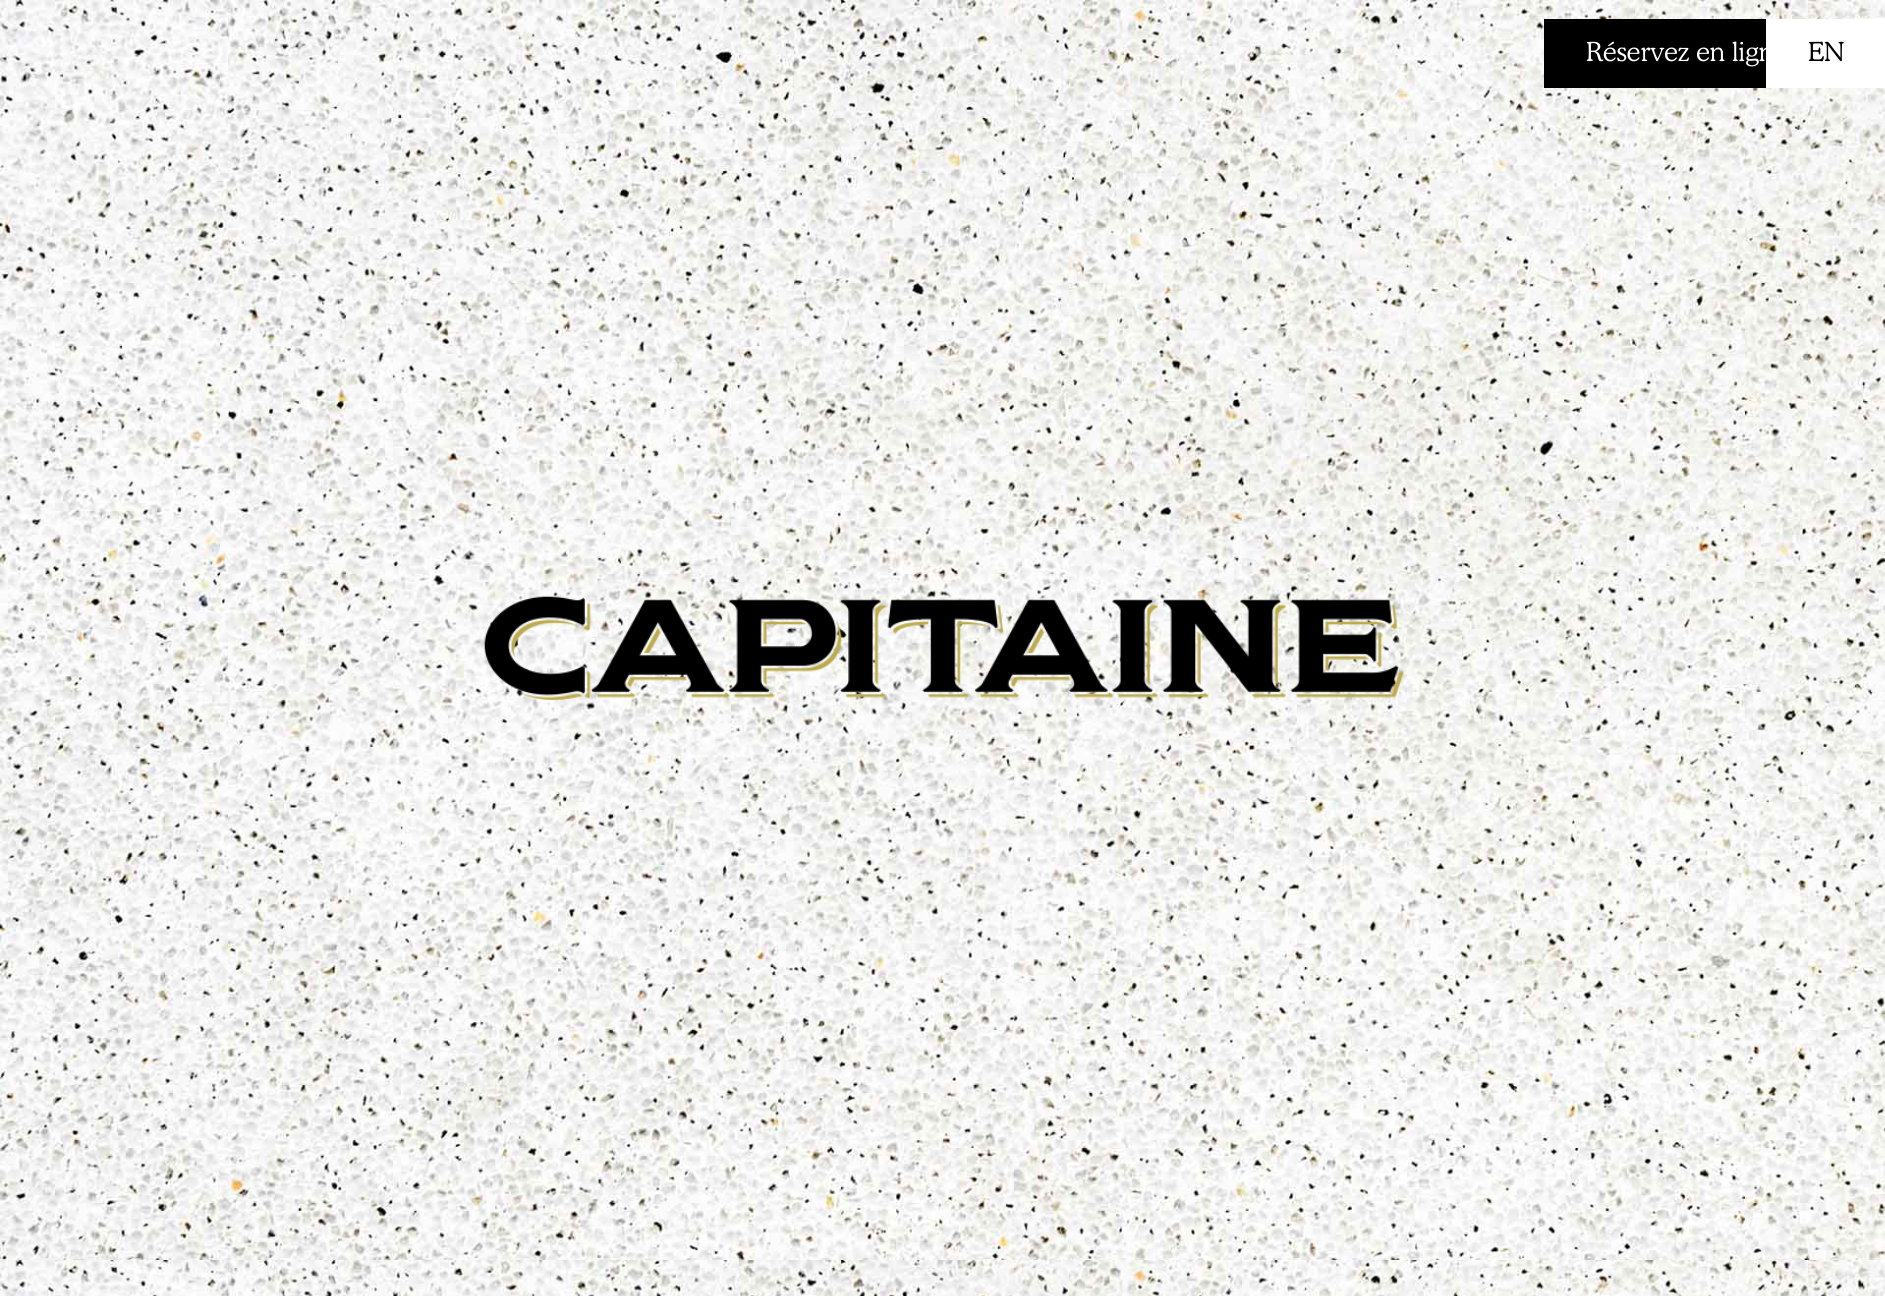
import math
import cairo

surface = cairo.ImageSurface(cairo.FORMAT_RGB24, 1885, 1296)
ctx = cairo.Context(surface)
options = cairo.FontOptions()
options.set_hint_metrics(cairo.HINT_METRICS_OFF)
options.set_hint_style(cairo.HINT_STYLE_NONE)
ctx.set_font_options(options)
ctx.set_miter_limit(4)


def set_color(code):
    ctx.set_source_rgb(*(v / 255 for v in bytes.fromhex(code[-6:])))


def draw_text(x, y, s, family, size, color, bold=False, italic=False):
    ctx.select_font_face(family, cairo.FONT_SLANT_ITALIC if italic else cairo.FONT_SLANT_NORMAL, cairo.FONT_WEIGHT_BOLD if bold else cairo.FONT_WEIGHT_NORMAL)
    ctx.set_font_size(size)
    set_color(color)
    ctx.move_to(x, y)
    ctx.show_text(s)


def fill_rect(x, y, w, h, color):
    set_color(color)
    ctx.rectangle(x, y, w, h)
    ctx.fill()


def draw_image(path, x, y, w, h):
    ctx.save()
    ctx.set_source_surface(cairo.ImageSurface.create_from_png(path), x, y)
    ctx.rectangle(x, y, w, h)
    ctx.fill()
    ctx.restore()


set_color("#ffffff")
ctx.paint()
draw_image("assets/img1.png", 0, 0, 1885, 1296)
fill_rect(1544, 19, 222, 69, "#000000")
draw_text(1586, 61, "Réservez en lign", "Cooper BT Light", 26.25, "#ffffff")
fill_rect(1766, 19, 119, 69, "#ffffff")
draw_text(1808, 61, "EN", "Cooper BT Light", 26.25, "#000000")
draw_image("assets/img2.png", 484, 596, 920, 104)
surface.write_to_png("output.png")
